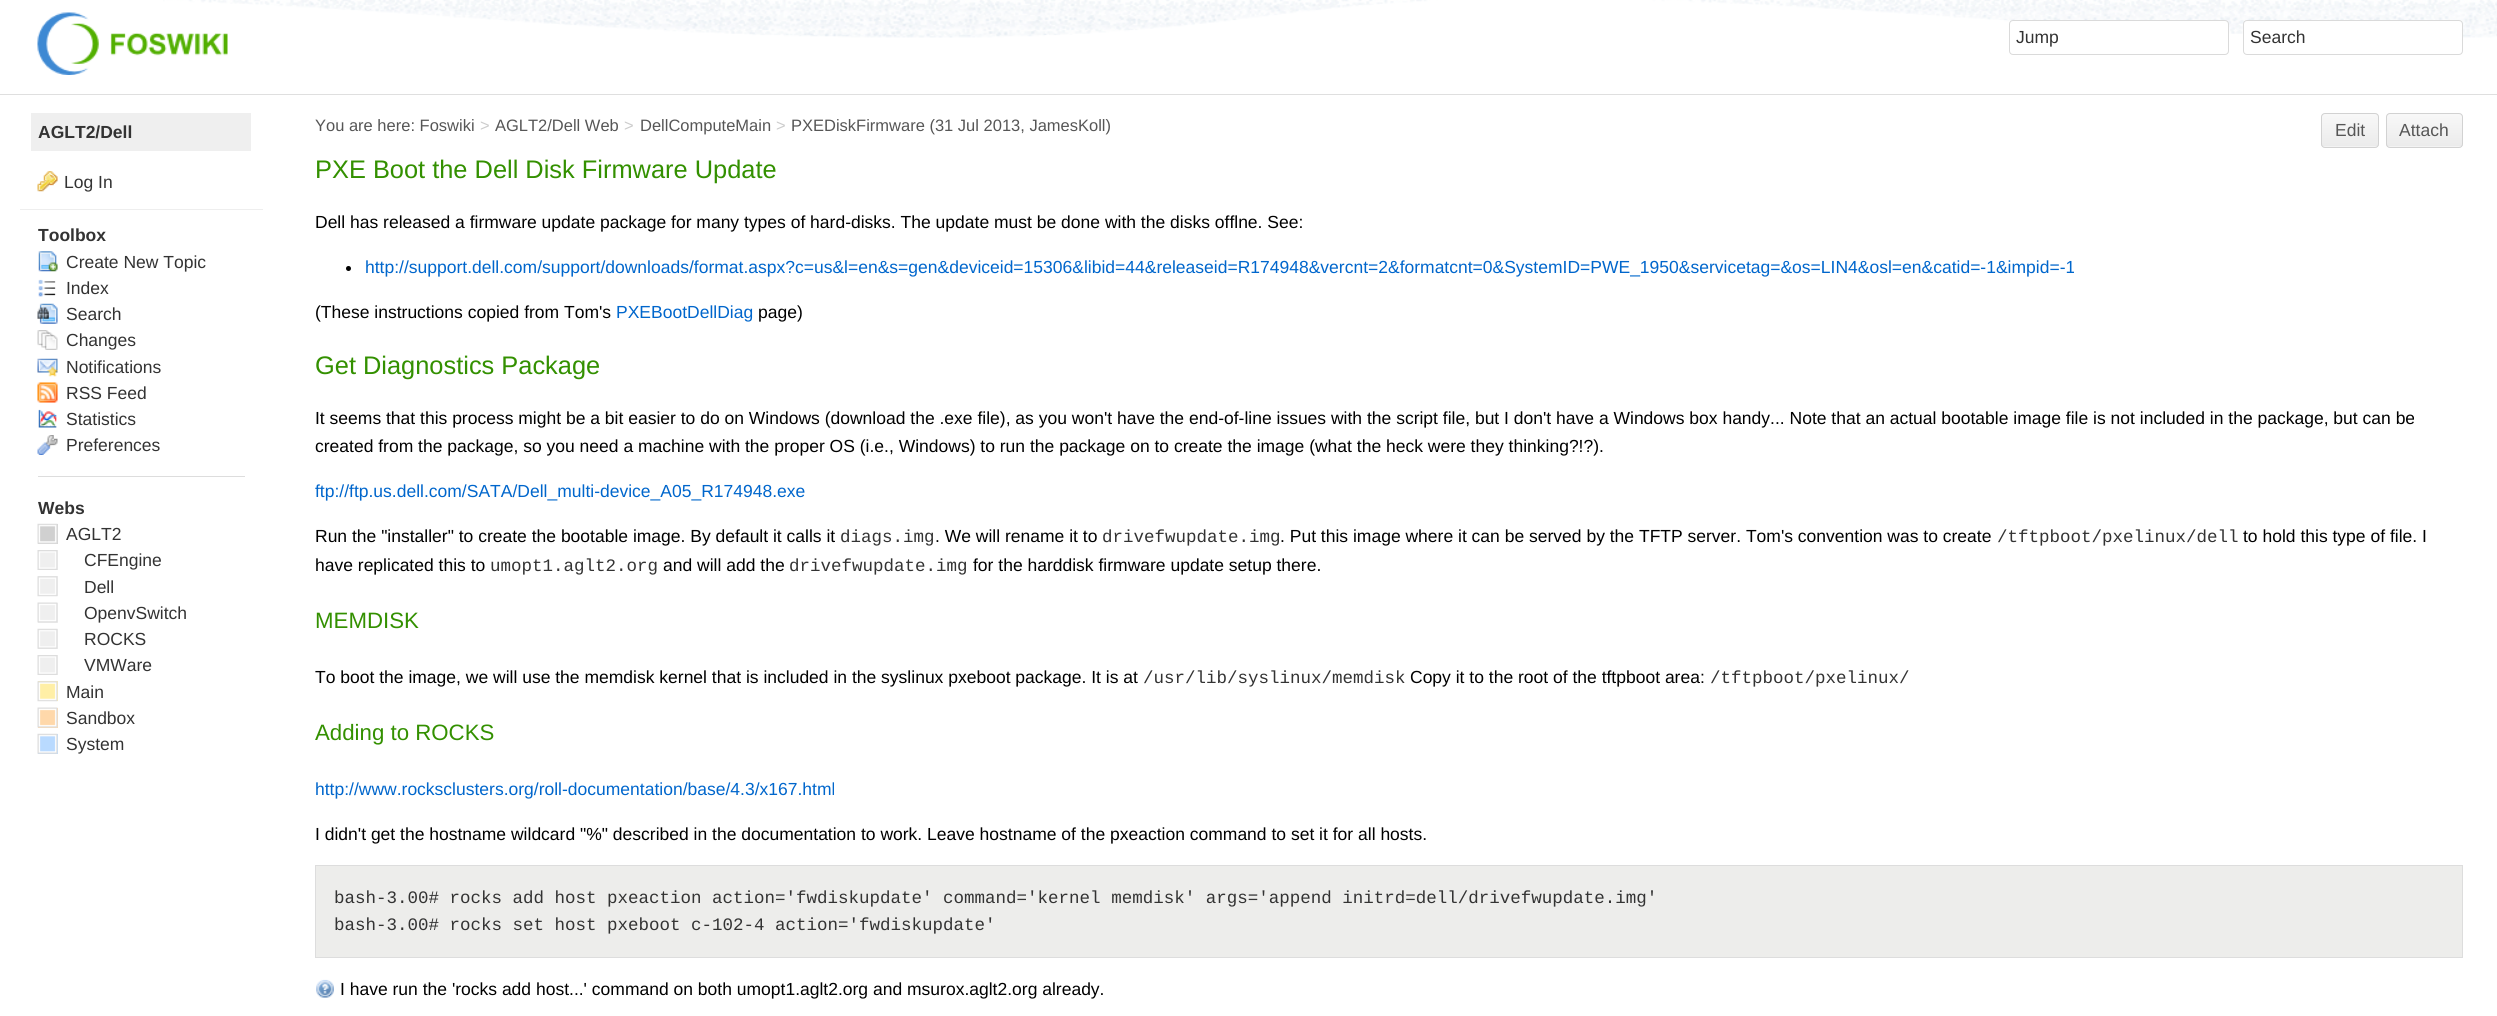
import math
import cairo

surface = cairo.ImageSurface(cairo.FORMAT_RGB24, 2497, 1016)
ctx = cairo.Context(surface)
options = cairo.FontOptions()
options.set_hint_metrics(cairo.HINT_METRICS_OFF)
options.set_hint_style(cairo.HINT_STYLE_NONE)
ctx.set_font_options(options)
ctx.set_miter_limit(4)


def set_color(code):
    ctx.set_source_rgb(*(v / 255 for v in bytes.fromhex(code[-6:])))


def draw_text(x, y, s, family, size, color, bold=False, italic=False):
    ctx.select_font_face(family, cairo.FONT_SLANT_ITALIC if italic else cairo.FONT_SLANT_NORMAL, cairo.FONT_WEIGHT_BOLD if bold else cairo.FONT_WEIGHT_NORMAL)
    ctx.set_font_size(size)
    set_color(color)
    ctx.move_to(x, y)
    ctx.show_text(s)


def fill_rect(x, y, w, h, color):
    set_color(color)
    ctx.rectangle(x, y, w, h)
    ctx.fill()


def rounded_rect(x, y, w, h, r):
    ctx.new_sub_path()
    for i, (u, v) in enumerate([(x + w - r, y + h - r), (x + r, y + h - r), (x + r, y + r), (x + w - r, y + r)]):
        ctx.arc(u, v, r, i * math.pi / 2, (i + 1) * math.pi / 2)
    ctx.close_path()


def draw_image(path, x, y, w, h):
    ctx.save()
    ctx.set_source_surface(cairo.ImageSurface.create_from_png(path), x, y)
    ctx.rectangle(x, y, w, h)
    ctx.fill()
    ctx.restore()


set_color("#dfdfdf")
ctx.paint()
fill_rect(0, 0, 2497, 94, "#ffffff")
draw_image("assets/img1.png", 163, 0, 2334, 38)
draw_image("assets/img2.png", 37, 12, 191, 63)
rounded_rect(2009.5, 20.5, 219, 34, 3.5)
ctx.fill_preserve()
set_color("#dadada")
ctx.set_line_width(1)
ctx.stroke()
draw_text(2016, 43, "Jump", "Liberation Sans", 17.5, "#333333")
set_color("#ffffff")
rounded_rect(2243.5, 20.5, 219, 34, 3.5)
ctx.fill_preserve()
set_color("#dadada")
ctx.stroke()
draw_text(2250, 43, "Search", "Liberation Sans", 17.5, "#333333")
fill_rect(0, 95, 2497, 921, "#ffffff")
fill_rect(31, 113, 220, 38, "#efefef")
draw_text(38, 138, "AGLT2/Dell", "Liberation Sans", 17.5, "#333333", bold=True)
fill_rect(20, 209, 243, 1, "#eeeeee")
draw_image("assets/img3.png", 37, 171, 21, 21)
draw_text(64, 188, "Log In", "Liberation Sans", 17.5, "#333333")
draw_text(38, 241, "Toolbox", "Liberation Sans", 17.5, "#333333", bold=True)
draw_image("assets/img4.png", 38, 251, 20, 21)
draw_text(66, 268, "Create New Topic", "Liberation Sans", 17.5, "#333333")
draw_image("assets/img5.png", 38, 279, 18, 18)
draw_text(66, 294, "Index", "Liberation Sans", 17.5, "#333333")
draw_image("assets/img6.png", 37, 303, 21, 21)
draw_text(66, 320, "Search", "Liberation Sans", 17.5, "#333333")
draw_image("assets/img7.png", 37, 330, 21, 20)
draw_text(66, 346, "Changes", "Liberation Sans", 17.5, "#333333")
draw_image("assets/img8.png", 37, 358, 21, 19)
draw_text(66, 373, "Notifications", "Liberation Sans", 17.5, "#333333")
draw_image("assets/img9.png", 37, 382, 21, 21)
draw_text(66, 399, "RSS Feed", "Liberation Sans", 17.5, "#333333")
draw_image("assets/img10.png", 38, 409, 19, 19)
draw_text(66, 425, "Statistics", "Liberation Sans", 17.5, "#333333")
draw_image("assets/img11.png", 37, 435, 21, 20)
draw_text(66, 451, "Preferences", "Liberation Sans", 17.5, "#333333")
fill_rect(38, 476, 207, 1, "#dddddd")
draw_text(38, 514, "Webs", "Liberation Sans", 17.5, "#333333", bold=True)
fill_rect(38, 524, 20, 20, "#d0d0d0")
draw_image("assets/img12.png", 37, 523, 21, 21)
draw_text(66, 540, "AGLT2", "Liberation Sans", 17.5, "#333333")
fill_rect(39, 550, 19, 20, "#efefef")
draw_image("assets/img13.png", 37, 550, 21, 20)
draw_text(84, 566, "CFEngine", "Liberation Sans", 17.5, "#333333")
fill_rect(38, 576, 20, 20, "#efefef")
draw_image("assets/img14.png", 37, 576, 21, 21)
draw_text(84, 593, "Dell", "Liberation Sans", 17.5, "#333333")
fill_rect(38, 603, 20, 20, "#efefef")
draw_image("assets/img15.png", 37, 602, 21, 21)
draw_text(84, 619, "OpenvSwitch", "Liberation Sans", 17.5, "#333333")
fill_rect(38, 629, 20, 20, "#efefef")
draw_image("assets/img16.png", 37, 628, 21, 21)
draw_text(84, 645, "ROCKS", "Liberation Sans", 17.5, "#333333")
fill_rect(39, 655, 19, 20, "#efefef")
draw_image("assets/img13.png", 37, 655, 21, 20)
draw_text(84, 671, "VMWare", "Liberation Sans", 17.5, "#333333")
fill_rect(38, 681, 20, 20, "#ffefa6")
draw_image("assets/img17.png", 37, 681, 21, 21)
draw_text(66, 698, "Main", "Liberation Sans", 17.5, "#333333")
fill_rect(38, 708, 20, 20, "#ffd8aa")
draw_image("assets/img18.png", 37, 707, 21, 21)
draw_text(66, 724, "Sandbox", "Liberation Sans", 17.5, "#333333")
fill_rect(38, 734, 20, 20, "#b9daff")
draw_image("assets/img19.png", 37, 733, 21, 21)
draw_text(66, 750, "System", "Liberation Sans", 17.5, "#333333")
draw_text(315, 131, "You are here: Foswiki", "Liberation Sans", 16.5, "#565656")
draw_text(480, 131, ">", "Liberation Sans", 16.5, "#cccccc")
draw_text(495, 131, "AGLT2/Dell Web", "Liberation Sans", 16.5, "#565656")
draw_text(624, 131, ">", "Liberation Sans", 16.5, "#cccccc")
draw_text(640, 131, "DellComputeMain", "Liberation Sans", 16.5, "#565656")
draw_text(776, 131, ">", "Liberation Sans", 16.5, "#cccccc")
draw_text(791, 131, "PXEDiskFirmware (31 Jul 2013, JamesKoll)", "Liberation Sans", 16.5, "#565656")
set_color("#f3f3f3")
rounded_rect(2321, 113, 58, 35, 4)
ctx.fill()
ctx.save()
rounded_rect(2321, 113, 58, 35, 4)
ctx.clip()
gradient = cairo.LinearGradient(2350, 114, 2350, 146)
gradient.add_color_stop_rgba(0, 0.973, 0.973, 0.973, 1)
gradient.add_color_stop_rgba(1, 0.922, 0.922, 0.922, 1)
ctx.set_source(gradient)
ctx.rectangle(2321, 114, 58, 32)
ctx.fill()
ctx.restore()
rounded_rect(2321.5, 113.5, 57, 34, 3.5)
set_color("#d2d2d2")
ctx.stroke()
draw_text(2335, 136, "Edit", "Liberation Sans", 17.5, "#565656")
set_color("#f3f3f3")
rounded_rect(2386, 113, 77, 35, 4)
ctx.fill()
ctx.save()
rounded_rect(2386, 113, 77, 35, 4)
ctx.clip()
gradient = cairo.LinearGradient(2424, 114, 2424, 146)
gradient.add_color_stop_rgba(0, 0.973, 0.973, 0.973, 1)
gradient.add_color_stop_rgba(1, 0.922, 0.922, 0.922, 1)
ctx.set_source(gradient)
ctx.rectangle(2386, 114, 77, 32)
ctx.fill()
ctx.restore()
rounded_rect(2386.5, 113.5, 76, 34, 3.5)
set_color("#d2d2d2")
ctx.stroke()
draw_text(2399, 136, "Attach", "Liberation Sans", 17.5, "#565656")
draw_text(315, 178, "PXE Boot the Dell Disk Firmware Update", "Liberation Sans", 25.4, "#339000")
draw_text(315, 228, "Dell has released a firmware update package for many types of hard-disks. The update must be done with the disks offlne. See:", "Liberation Sans", 17.5, "#000000")
ctx.new_path()
ctx.arc(348.5, 268.5, 2.5, 0, 2 * math.pi)
ctx.fill()
draw_text(365, 273, "http://support.dell.com/support/downloads/format.aspx?c=us&l=en&s=gen&deviceid=15306&libid=44&releaseid=R174948&vercnt=2&formatcnt=0&SystemID=PWE_1950&servicetag=&os=LIN4&osl=en&catid=-1&impid=-1", "Liberation Sans", 17.5, "#0066cc")
draw_text(315, 318, "(These instructions copied from Tom's", "Liberation Sans", 17.5, "#000000")
draw_text(616, 318, "PXEBootDellDiag", "Liberation Sans", 17.5, "#0066cc")
draw_text(758, 318, "page)", "Liberation Sans", 17.5, "#000000")
draw_text(315, 374, "Get Diagnostics Package", "Liberation Sans", 25.4, "#339000")
draw_text(315, 424, "It seems that this process might be a bit easier to do on Windows (download the .exe file), as you won't have the end-of-line issues with the script file, but I don't have a Windows box handy... Note that an actual bootable image file is not included in the package, but can be", "Liberation Sans", 17.5, "#000000")
draw_text(315, 452, "created from the package, so you need a machine with the proper OS (i.e., Windows) to run the package on to create the image (what the heck were they thinking?!?).", "Liberation Sans", 17.5, "#000000")
draw_text(315, 497, "ftp://ftp.us.dell.com/SATA/Dell_multi-device_A05_R174948.exe", "Liberation Sans", 17.5, "#0066cc")
draw_text(315, 542, "Run the \"installer\" to create the bootable image. By default it calls it", "Liberation Sans", 17.5, "#000000")
draw_text(840, 542, "diags.img", "Liberation Mono", 17.5, "#333333")
draw_text(935, 542, ". We will rename it to", "Liberation Sans", 17.5, "#000000")
draw_text(1102, 542, "drivefwupdate.img", "Liberation Mono", 17.5, "#333333")
draw_text(1280, 542, ". Put this image where it can be served by the TFTP server. Tom's convention was to create", "Liberation Sans", 17.5, "#000000")
draw_text(1997, 542, "/tftpboot/pxelinux/dell", "Liberation Mono", 17.5, "#333333")
draw_text(2243, 542, "to hold this type of file. I", "Liberation Sans", 17.5, "#000000")
draw_text(315, 571, "have replicated this to", "Liberation Sans", 17.5, "#000000")
draw_text(490, 571, "umopt1.aglt2.org", "Liberation Mono", 17.5, "#333333")
draw_text(663, 571, "and will add the", "Liberation Sans", 17.5, "#000000")
draw_text(789, 571, "drivefwupdate.img", "Liberation Mono", 17.5, "#333333")
draw_text(973, 571, "for the harddisk firmware update setup there.", "Liberation Sans", 17.5, "#000000")
draw_text(315, 628, "MEMDISK", "Liberation Sans", 22.25, "#339000")
draw_text(315, 683, "To boot the image, we will use the memdisk kernel that is included in the syslinux pxeboot package. It is at", "Liberation Sans", 17.5, "#000000")
draw_text(1143, 683, "/usr/lib/syslinux/memdisk", "Liberation Mono", 17.5, "#333333")
draw_text(1410, 683, "Copy it to the root of the tftpboot area:", "Liberation Sans", 17.5, "#000000")
draw_text(1710, 683, "/tftpboot/pxelinux/", "Liberation Mono", 17.5, "#333333")
draw_text(315, 740, "Adding to ROCKS", "Liberation Sans", 22.25, "#339000")
draw_text(315, 795, "http://www.rocksclusters.org/roll-documentation/base/4.3/x167.html", "Liberation Sans", 17.5, "#0066cc")
draw_text(315, 840, "I didn't get the hostname wildcard \"%\" described in the documentation to work. Leave hostname of the pxeaction command to set it for all hosts.", "Liberation Sans", 17.5, "#000000")
set_color("#ededeb")
ctx.rectangle(315.5, 865.5, 2147, 92)
ctx.fill_preserve()
set_color("#dddddd")
ctx.stroke()
draw_text(334, 903, "bash-3.00# rocks add host pxeaction action='fwdiskupdate' command='kernel memdisk' args='append initrd=dell/drivefwupdate.img'", "Liberation Mono", 17.5, "#333333")
draw_text(334, 930, "bash-3.00# rocks set host pxeboot c-102-4 action='fwdiskupdate'", "Liberation Mono", 17.5, "#333333")
draw_image("assets/img20.png", 316, 979, 18, 19)
draw_text(340, 995, "I have run the 'rocks add host...' command on both umopt1.aglt2.org and msurox.aglt2.org already.", "Liberation Sans", 17.5, "#000000")
surface.write_to_png("output.png")
